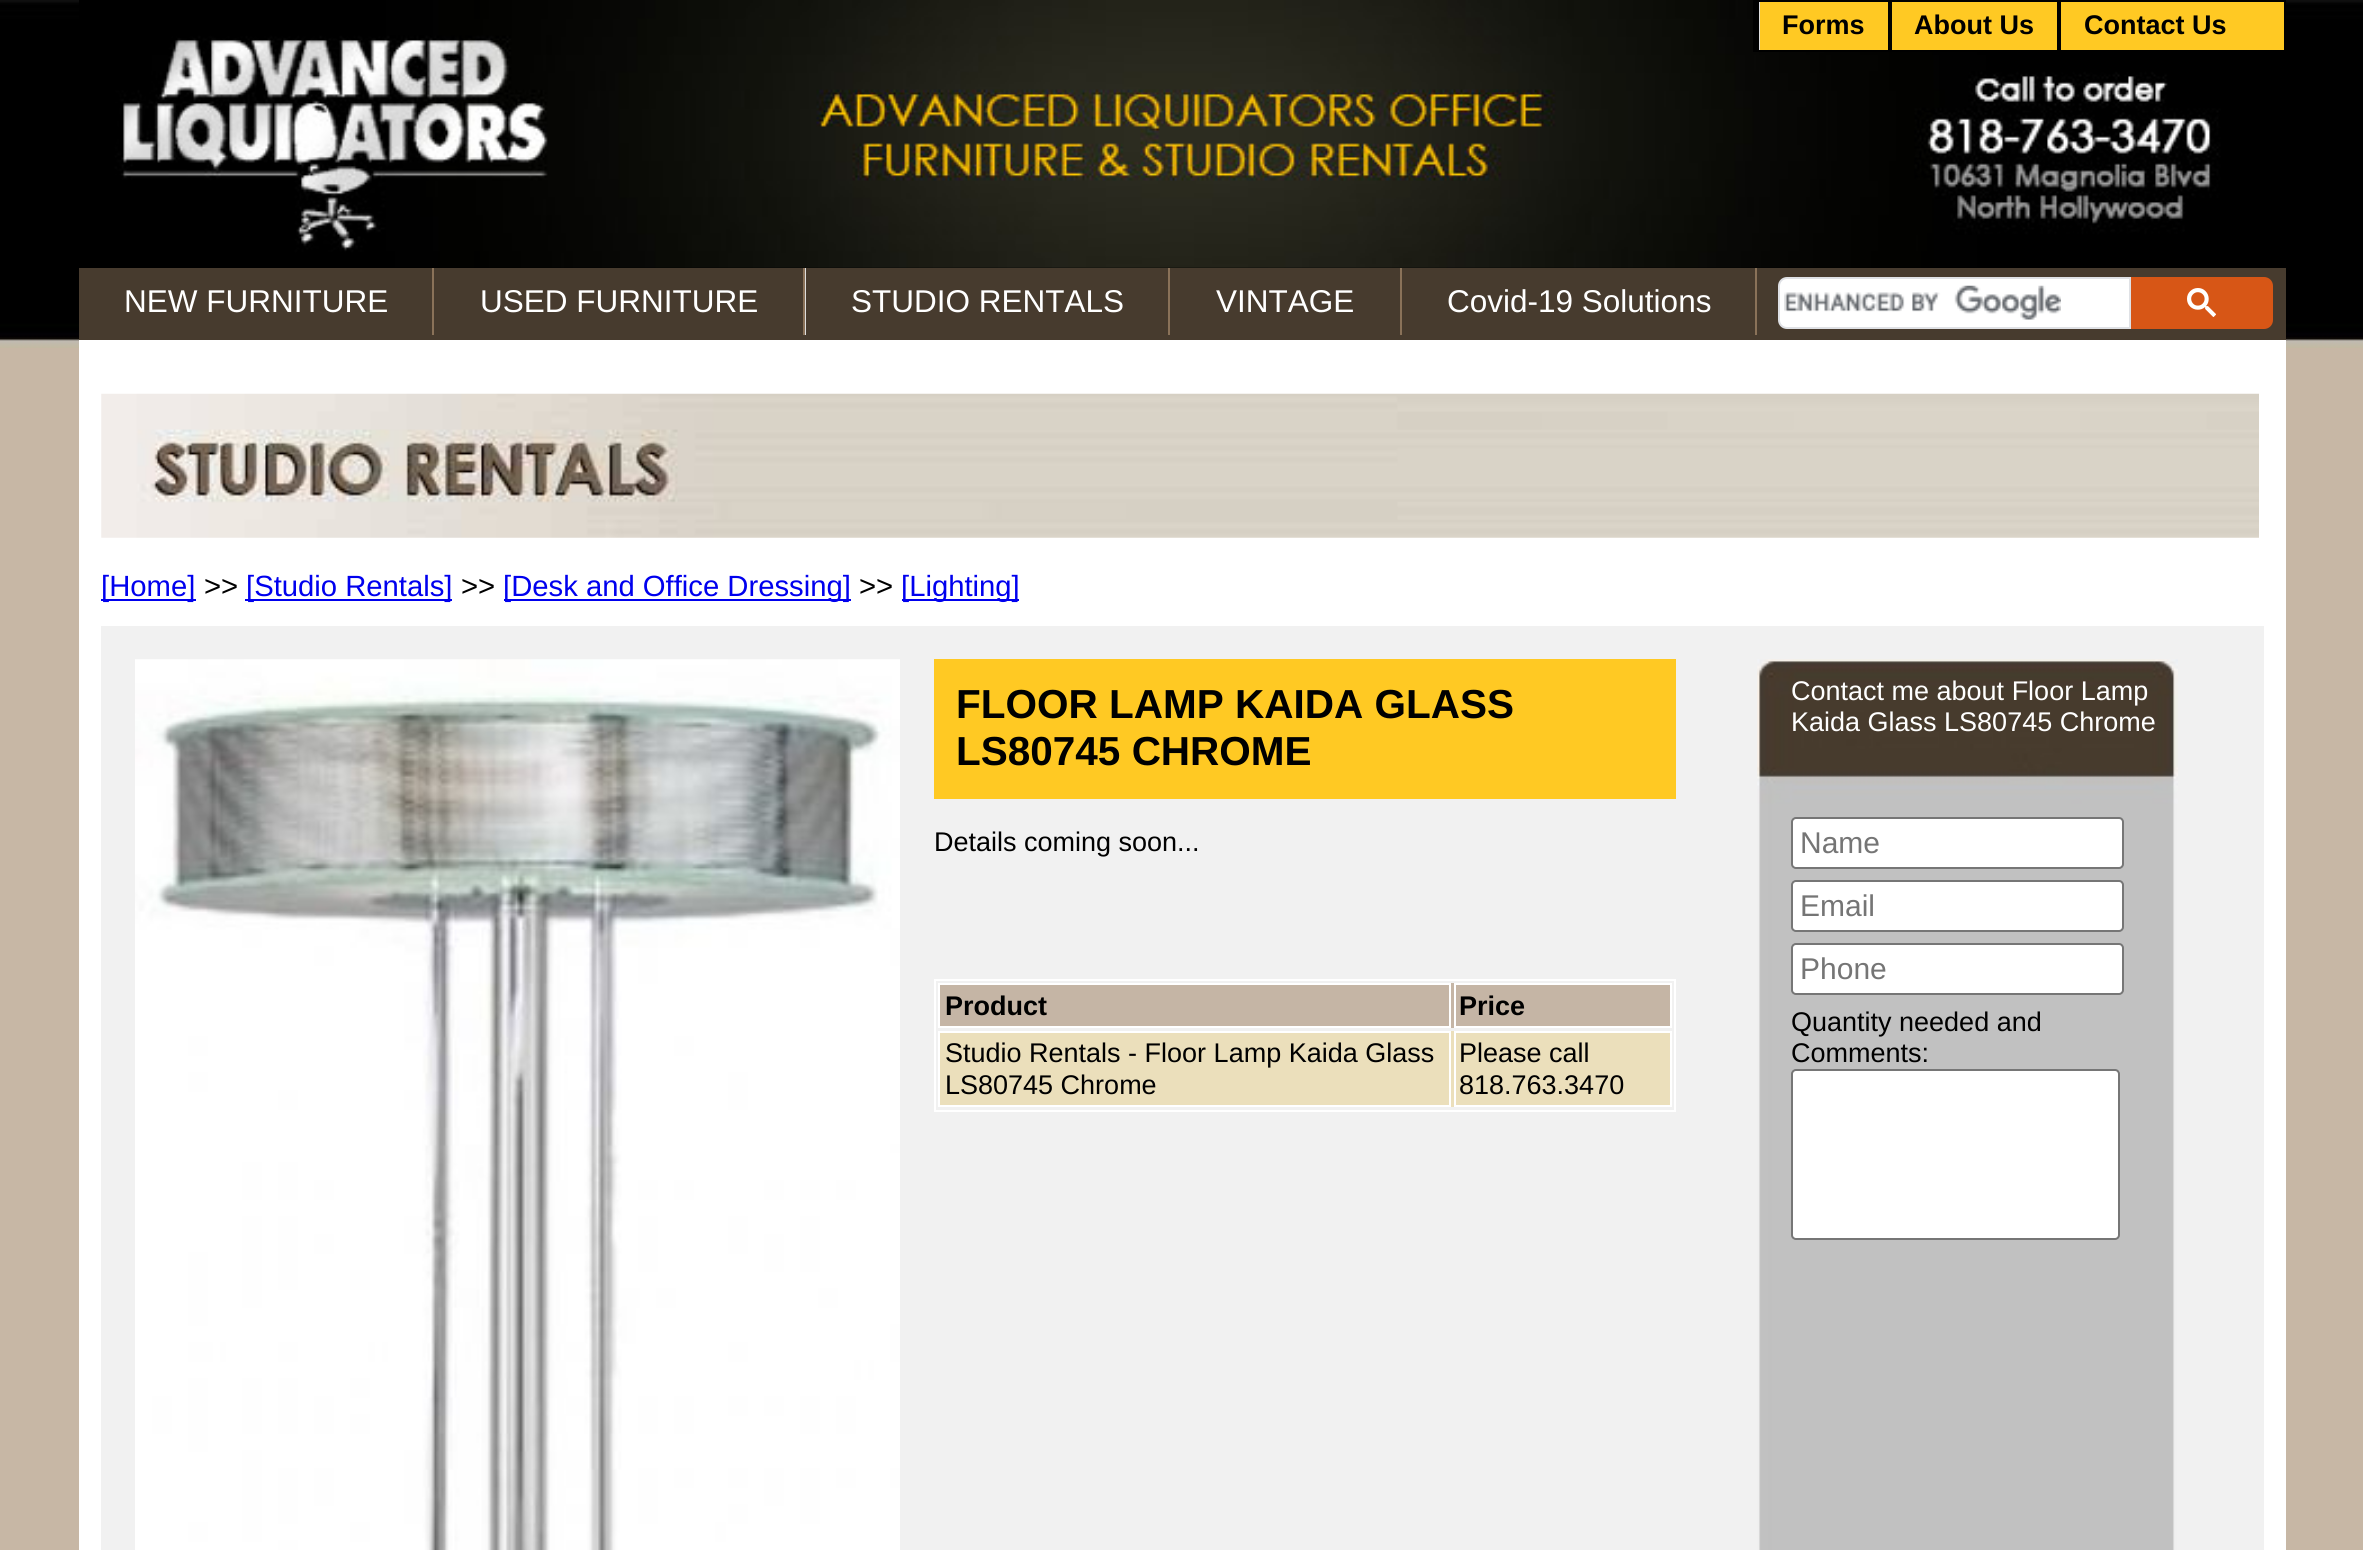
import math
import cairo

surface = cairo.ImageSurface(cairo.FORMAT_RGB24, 2363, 1550)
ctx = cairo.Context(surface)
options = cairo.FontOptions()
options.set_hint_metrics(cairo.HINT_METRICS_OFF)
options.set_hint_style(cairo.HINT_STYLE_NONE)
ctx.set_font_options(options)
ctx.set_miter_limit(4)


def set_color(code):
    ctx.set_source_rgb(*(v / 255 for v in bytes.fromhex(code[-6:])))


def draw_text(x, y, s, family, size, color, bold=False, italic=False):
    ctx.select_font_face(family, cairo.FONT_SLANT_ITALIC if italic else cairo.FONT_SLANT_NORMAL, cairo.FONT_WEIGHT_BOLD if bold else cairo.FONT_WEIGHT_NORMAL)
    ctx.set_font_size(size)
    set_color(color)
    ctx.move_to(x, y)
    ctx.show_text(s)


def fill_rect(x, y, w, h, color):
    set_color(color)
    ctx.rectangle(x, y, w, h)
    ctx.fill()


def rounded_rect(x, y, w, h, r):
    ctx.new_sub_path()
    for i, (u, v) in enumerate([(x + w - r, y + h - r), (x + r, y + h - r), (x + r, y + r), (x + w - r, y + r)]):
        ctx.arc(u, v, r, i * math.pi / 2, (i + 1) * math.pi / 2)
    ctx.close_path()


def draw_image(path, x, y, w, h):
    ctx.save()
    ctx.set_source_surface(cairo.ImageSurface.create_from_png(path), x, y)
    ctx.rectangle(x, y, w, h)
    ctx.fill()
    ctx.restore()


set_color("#c7b7a5")
ctx.paint()
draw_image("assets/img1.png", 0, 0, 2363, 348)
draw_image("assets/img2.png", 79, 0, 2205, 268)
fill_rect(1759, 2, 1, 48, "#dedede")
ctx.rectangle(1754, 1, 531, 50)
set_color("#000000")
ctx.stroke()
fill_rect(1755, 2, 4, 48, "#000000")
fill_rect(1760, 2, 128, 48, "#ffc923")
draw_text(1782, 34, "Forms", "Liberation Sans", 27, "#000000", bold=True)
fill_rect(1888, 37, 1, 13, "#000000")
fill_rect(1892, 2, 165, 48, "#ffc923")
draw_text(1914, 34, "About Us", "Liberation Sans", 27, "#000000", bold=True)
fill_rect(2061, 2, 223, 48, "#ffc923")
draw_text(2084, 34, "Contact Us", "Liberation Sans", 27, "#000000", bold=True)
fill_rect(79, 268, 2207, 72, "#473b2e")
fill_rect(805, 268, 1, 67, "#dedede")
fill_rect(432, 268, 2, 67, "#8a7259")
draw_text(124, 312, "NEW FURNITURE", "Liberation Sans", 31.5, "#ffffff")
fill_rect(803, 268, 2, 67, "#8a7259")
draw_text(480, 312, "USED FURNITURE", "Liberation Sans", 31.5, "#ffffff")
fill_rect(1168, 268, 2, 67, "#8a7259")
draw_text(851, 312, "STUDIO RENTALS", "Liberation Sans", 31.5, "#ffffff")
fill_rect(1400, 268, 2, 67, "#8a7259")
draw_text(1216, 312, "VINTAGE", "Liberation Sans", 31.5, "#ffffff")
fill_rect(1755, 268, 2, 67, "#8a7259")
draw_text(1447, 312, "Covid-19 Solutions", "Liberation Sans", 31.5, "#ffffff")
ctx.new_path()
ctx.move_to(1787, 278)
ctx.line_to(2130, 278)
ctx.line_to(2130, 328)
ctx.line_to(1787, 328)
ctx.curve_to(1782.5, 328, 1779, 324.5, 1779, 320)
ctx.line_to(1779, 286)
ctx.curve_to(1779, 281.5, 1782.5, 278, 1787, 278)
ctx.close_path()
ctx.fill_preserve()
set_color("#dfe1e5")
ctx.stroke()
draw_image("assets/img3.png", 1784, 285, 277, 35)
set_color("#d75616")
ctx.new_path()
ctx.move_to(2132, 278)
ctx.line_to(2264, 278)
ctx.curve_to(2268.5, 278, 2272, 281.5, 2272, 286)
ctx.line_to(2272, 320)
ctx.curve_to(2272, 324.5, 2268.5, 328, 2264, 328)
ctx.line_to(2132, 328)
ctx.close_path()
ctx.fill_preserve()
ctx.stroke()
draw_image("assets/img4.png", 2187, 288, 29, 29)
fill_rect(79, 340, 2207, 1210, "#ffffff")
draw_image("assets/img5.png", 101, 393, 2158, 145)
fill_rect(101, 599, 95, 2, "#0000ee")
draw_text(101, 596, "[Home]", "Liberation Sans", 29.25, "#0000ee")
draw_text(204, 596, ">>", "Liberation Sans", 29.25, "#000000")
fill_rect(245, 599, 207, 2, "#0000ee")
draw_text(246, 596, "[Studio Rentals]", "Liberation Sans", 29.25, "#0000ee")
draw_text(461, 596, ">>", "Liberation Sans", 29.25, "#000000")
fill_rect(504, 599, 347, 2, "#0000ee")
draw_text(503, 596, "[Desk and Office Dressing]", "Liberation Sans", 29.25, "#0000ee")
draw_text(859, 596, ">>", "Liberation Sans", 29.25, "#000000")
fill_rect(902, 599, 117, 2, "#0000ee")
draw_text(901, 596, "[Lighting]", "Liberation Sans", 29.25, "#0000ee")
fill_rect(101, 626, 2163, 924, "#f1f1f1")
draw_image("assets/img6.png", 135, 659, 765, 891)
fill_rect(934, 659, 742, 140, "#ffc923")
draw_text(956, 718, "FLOOR LAMP KAIDA GLASS", "Liberation Sans", 40.5, "#000000", bold=True)
draw_text(956, 765, "LS80745 CHROME", "Liberation Sans", 40.5, "#000000", bold=True)
draw_text(934, 851, "Details coming soon...", "Liberation Sans", 27, "#000000")
ctx.rectangle(935, 980, 740, 131)
set_color("#ffffff")
ctx.stroke()
fill_rect(940, 983, 730, 45, "#c5b5a5")
ctx.rectangle(939, 984, 511, 43)
set_color("#ffffff")
ctx.stroke()
draw_text(945, 1015, "Product", "Liberation Sans", 27, "#000000", bold=True)
ctx.rectangle(1455, 984, 216, 43)
set_color("#ffffff")
ctx.stroke()
draw_text(1459, 1015, "Price", "Liberation Sans", 27, "#000000", bold=True)
fill_rect(940, 1031, 730, 76, "#ebdfbb")
ctx.rectangle(939, 1032, 511, 74)
set_color("#ffffff")
ctx.stroke()
draw_text(945, 1062, "Studio Rentals - Floor Lamp Kaida Glass", "Liberation Sans", 27, "#000000")
draw_text(945, 1094, "LS80745 Chrome", "Liberation Sans", 27, "#000000")
ctx.rectangle(1455, 1032, 216, 74)
set_color("#ffffff")
ctx.stroke()
draw_text(1459, 1062, "Please call", "Liberation Sans", 27, "#000000")
draw_text(1459, 1094, "818.763.3470", "Liberation Sans", 27, "#000000")
draw_image("assets/img7.png", 1757, 659, 421, 891)
draw_text(1791, 700, "Contact me about Floor Lamp", "Liberation Sans", 27, "#ffffff")
draw_text(1791, 731, "Kaida Glass LS80745 Chrome", "Liberation Sans", 27, "#ffffff")
rounded_rect(1792, 818, 331, 50, 4)
ctx.fill_preserve()
set_color("#767676")
ctx.stroke()
draw_text(1800, 853, "Name", "Liberation Sans", 30, "#757575")
set_color("#ffffff")
rounded_rect(1792, 881, 331, 50, 4)
ctx.fill_preserve()
set_color("#767676")
ctx.stroke()
draw_text(1800, 916, "Email", "Liberation Sans", 30, "#757575")
set_color("#ffffff")
rounded_rect(1792, 944, 331, 50, 4)
ctx.fill_preserve()
set_color("#767676")
ctx.stroke()
draw_text(1800, 979, "Phone", "Liberation Sans", 30, "#757575")
draw_text(1791, 1031, "Quantity needed and", "Liberation Sans", 27, "#000000")
draw_text(1791, 1062, "Comments:", "Liberation Sans", 27, "#000000")
set_color("#ffffff")
rounded_rect(1792, 1070, 327, 169, 4)
ctx.fill_preserve()
set_color("#767676")
ctx.stroke()
surface.write_to_png("output.png")
